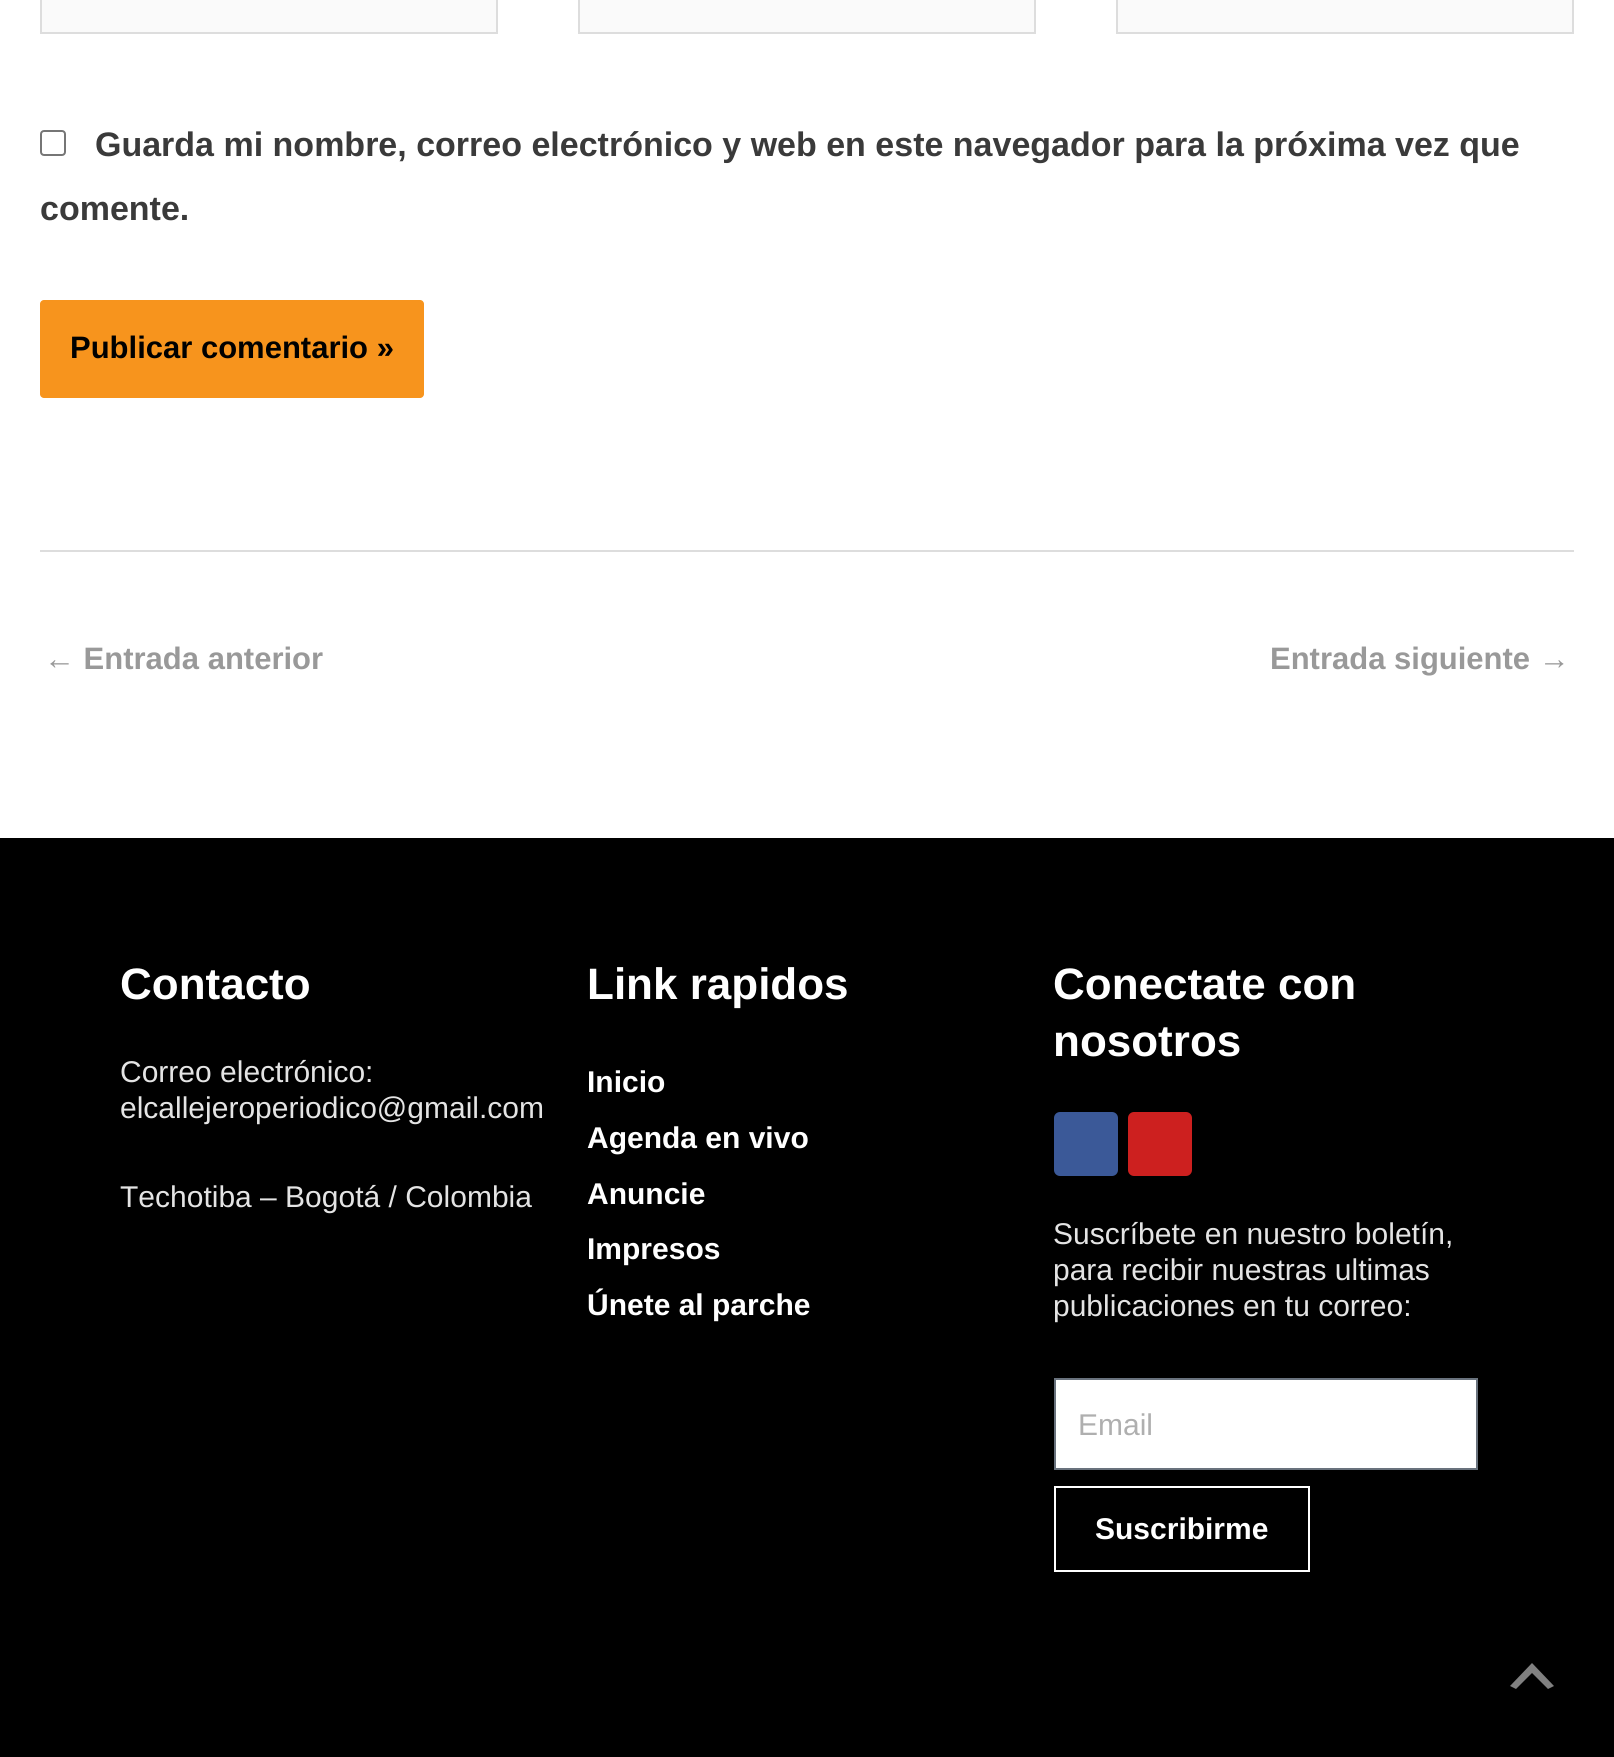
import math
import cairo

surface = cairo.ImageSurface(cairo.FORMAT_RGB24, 1614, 1757)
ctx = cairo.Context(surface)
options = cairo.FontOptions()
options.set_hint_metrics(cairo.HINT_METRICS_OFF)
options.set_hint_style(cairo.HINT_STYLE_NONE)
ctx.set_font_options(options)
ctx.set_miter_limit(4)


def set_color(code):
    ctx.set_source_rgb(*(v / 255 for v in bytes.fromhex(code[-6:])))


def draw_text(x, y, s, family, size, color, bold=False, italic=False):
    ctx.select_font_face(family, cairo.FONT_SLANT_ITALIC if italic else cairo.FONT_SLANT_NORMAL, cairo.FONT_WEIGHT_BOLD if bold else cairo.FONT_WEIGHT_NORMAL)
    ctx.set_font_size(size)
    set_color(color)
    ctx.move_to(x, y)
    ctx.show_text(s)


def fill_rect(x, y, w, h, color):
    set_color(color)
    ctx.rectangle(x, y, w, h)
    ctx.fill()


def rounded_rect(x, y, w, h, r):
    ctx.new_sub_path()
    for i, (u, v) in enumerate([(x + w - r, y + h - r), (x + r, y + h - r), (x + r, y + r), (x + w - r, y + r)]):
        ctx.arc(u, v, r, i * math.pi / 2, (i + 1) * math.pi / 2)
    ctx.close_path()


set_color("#ffffff")
ctx.paint()
set_color("#fafafa")
ctx.rectangle(41, -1, 456, 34)
ctx.fill_preserve()
set_color("#dddddd")
ctx.stroke()
set_color("#fafafa")
ctx.rectangle(579, -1, 456, 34)
ctx.fill_preserve()
set_color("#dddddd")
ctx.stroke()
set_color("#fafafa")
ctx.rectangle(1117, -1, 456, 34)
ctx.fill_preserve()
set_color("#dddddd")
ctx.stroke()
rounded_rect(41, 131, 24, 24, 3)
set_color("#767676")
ctx.stroke()
draw_text(95, 156, "Guarda mi nombre, correo electrónico y web en este navegador para la próxima vez que", "Liberation Sans", 34, "#3a3a3a", bold=True)
draw_text(40, 220, "comente.", "Liberation Sans", 34, "#3a3a3a", bold=True)
set_color("#f7941d")
rounded_rect(40, 300, 384, 98, 4)
ctx.fill()
draw_text(70, 358, "Publicar comentario »", "Liberation Sans", 31, "#000000", bold=True)
fill_rect(40, 550, 1534, 2, "#dddddd")
draw_text(44, 669, "← Entrada anterior", "Liberation Sans", 31, "#999999", bold=True)
draw_text(1270, 669, "Entrada siguiente →", "Liberation Sans", 31, "#999999", bold=True)
fill_rect(0, 838, 1614, 919, "#000000")
draw_text(120, 999, "Contacto", "Liberation Sans", 44, "#ffffff", bold=True)
draw_text(120, 1082, "Correo electrónico:", "Liberation Sans", 30, "#e4e4e4")
draw_text(120, 1118, "elcallejeroperiodico@gmail.com", "Liberation Sans", 30, "#e4e4e4")
draw_text(120, 1207, "Techotiba – Bogotá / Colombia", "Liberation Sans", 30, "#e4e4e4")
draw_text(587, 999, "Link rapidos", "Liberation Sans", 44, "#ffffff", bold=True)
draw_text(587, 1092, "Inicio", "Liberation Sans", 30, "#ffffff", bold=True)
draw_text(587, 1148, "Agenda en vivo", "Liberation Sans", 30, "#ffffff", bold=True)
draw_text(587, 1204, "Anuncie", "Liberation Sans", 30, "#ffffff", bold=True)
draw_text(587, 1259, "Impresos", "Liberation Sans", 30, "#ffffff", bold=True)
draw_text(587, 1315, "Únete al parche", "Liberation Sans", 30, "#ffffff", bold=True)
draw_text(1053, 999, "Conectate con", "Liberation Sans", 44, "#ffffff", bold=True)
draw_text(1053, 1056, "nosotros", "Liberation Sans", 44, "#ffffff", bold=True)
set_color("#3b5998")
rounded_rect(1054, 1112, 64, 64, 6)
ctx.fill()
set_color("#cd201f")
rounded_rect(1128, 1112, 64, 64, 6)
ctx.fill()
draw_text(1053, 1244, "Suscríbete en nuestro boletín,", "Liberation Sans", 30, "#e4e4e4")
draw_text(1053, 1280, "para recibir nuestras ultimas", "Liberation Sans", 30, "#e4e4e4")
draw_text(1053, 1316, "publicaciones en tu correo:", "Liberation Sans", 30, "#e4e4e4")
set_color("#ffffff")
ctx.rectangle(1055, 1379, 422, 90)
ctx.fill_preserve()
set_color("#69727d")
ctx.stroke()
draw_text(1078, 1435, "Email", "Liberation Sans", 30, "#afafaf")
ctx.rectangle(1055, 1487, 254, 84)
set_color("#ffffff")
ctx.stroke()
draw_text(1095, 1539, "Suscribirme", "Liberation Sans", 30, "#ffffff", bold=True)
set_color("#808080")
ctx.new_path()
ctx.move_to(1548, 1689)
ctx.line_to(1532, 1673)
ctx.line_to(1516, 1689)
ctx.line_to(1510, 1686)
ctx.line_to(1532, 1663)
ctx.line_to(1554, 1686)
ctx.close_path()
ctx.fill()
surface.write_to_png("output.png")
